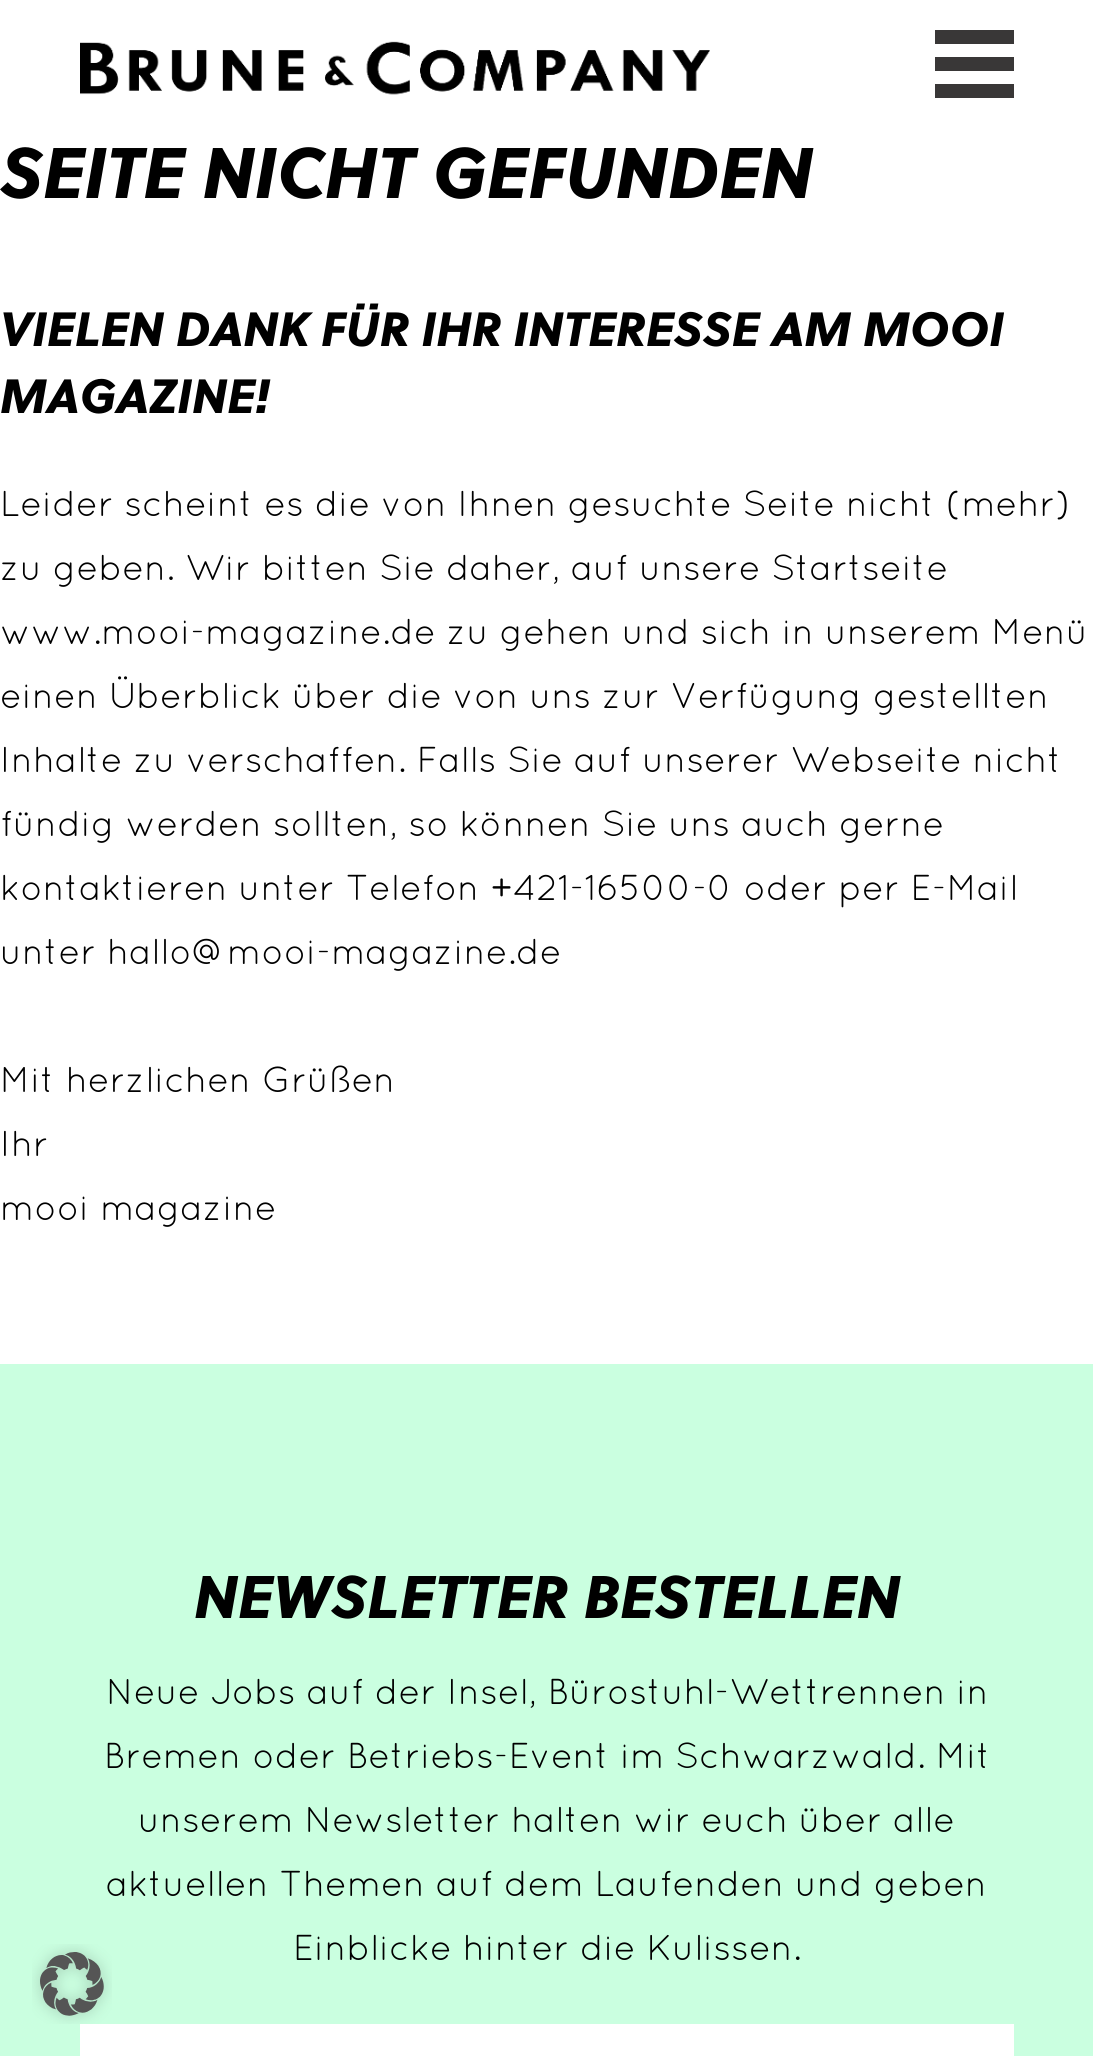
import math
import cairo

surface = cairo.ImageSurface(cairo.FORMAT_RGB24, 1093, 2056)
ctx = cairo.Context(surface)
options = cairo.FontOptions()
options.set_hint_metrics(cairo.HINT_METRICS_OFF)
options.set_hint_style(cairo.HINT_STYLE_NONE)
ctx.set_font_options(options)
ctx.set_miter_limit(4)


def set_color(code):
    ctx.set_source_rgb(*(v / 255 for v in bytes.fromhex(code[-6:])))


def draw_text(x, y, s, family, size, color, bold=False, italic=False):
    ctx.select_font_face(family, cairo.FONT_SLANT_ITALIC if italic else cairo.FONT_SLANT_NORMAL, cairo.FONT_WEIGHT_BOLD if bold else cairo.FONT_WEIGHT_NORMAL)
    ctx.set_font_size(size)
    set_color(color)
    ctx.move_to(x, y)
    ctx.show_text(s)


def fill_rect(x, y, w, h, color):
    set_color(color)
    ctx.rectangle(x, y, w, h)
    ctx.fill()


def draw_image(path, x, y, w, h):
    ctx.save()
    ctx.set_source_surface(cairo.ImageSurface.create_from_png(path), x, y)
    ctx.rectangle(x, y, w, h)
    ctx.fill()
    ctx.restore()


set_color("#ffffff")
ctx.paint()
draw_image("assets/img1.png", 80, 41, 630, 54)
fill_rect(935, 30, 79, 14, "#393737")
fill_rect(935, 57, 79, 14, "#393737")
fill_rect(935, 84, 79, 14, "#393737")
draw_text(0, 198, "SEITE NICHT GEFUNDEN", "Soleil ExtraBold", 71.4, "#000000", italic=True)
draw_text(0, 346, "VIELEN DANK FÜR IHR INTERESSE AM MOOI", "Soleil ExtraBold", 48, "#000000", italic=True)
draw_text(0, 413, "MAGAZINE!", "Soleil ExtraBold", 48, "#000000", italic=True)
draw_text(0, 516, "Leider scheint es die von Ihnen gesuchte Seite nicht (mehr)", "Quicksand", 36, "#000000")
draw_text(0, 580, "zu geben. Wir bitten Sie daher, auf unsere Startseite", "Quicksand", 36, "#000000")
draw_text(0, 644, "www.mooi-magazine.de zu gehen und sich in unserem Menü", "Quicksand", 36, "#000000")
draw_text(0, 708, "einen Überblick über die von uns zur Verfügung gestellten", "Quicksand", 36, "#000000")
draw_text(0, 772, "Inhalte zu verschaffen. Falls Sie auf unserer Webseite nicht", "Quicksand", 36, "#000000")
draw_text(0, 836, "fündig werden sollten, so können Sie uns auch gerne", "Quicksand", 36, "#000000")
draw_text(0, 900, "kontaktieren unter Telefon +421-16500-0 oder per E-Mail", "Quicksand", 36, "#000000")
draw_text(0, 964, "unter hallo@mooi-magazine.de", "Quicksand", 36, "#000000")
draw_text(0, 1092, "Mit herzlichen Grüßen", "Quicksand", 36, "#000000")
draw_text(0, 1156, "Ihr", "Quicksand", 36, "#000000")
draw_text(0, 1220, "mooi magazine", "Quicksand", 36, "#000000")
fill_rect(0, 1364, 1093, 692, "#caffe0")
draw_text(194, 1618, "NEWSLETTER BESTELLEN", "Soleil ExtraBold", 60, "#000000", italic=True)
draw_text(106, 1704, "Neue Jobs auf der Insel, Bürostuhl-Wettrennen in", "Quicksand", 36, "#000000")
draw_text(104, 1768, "Bremen oder Betriebs-Event im Schwarzwald. Mit", "Quicksand", 36, "#000000")
draw_text(138, 1832, "unserem Newsletter halten wir euch über alle", "Quicksand", 36, "#000000")
draw_text(106, 1896, "aktuellen Themen auf dem Laufenden und geben", "Quicksand", 36, "#000000")
draw_text(293, 1960, "Einblicke hinter die Kulissen.", "Quicksand", 36, "#000000")
fill_rect(80, 2024, 934, 32, "#ffffff")
draw_image("assets/img2.png", 32, 1944, 80, 80)
surface.write_to_png("output.png")
